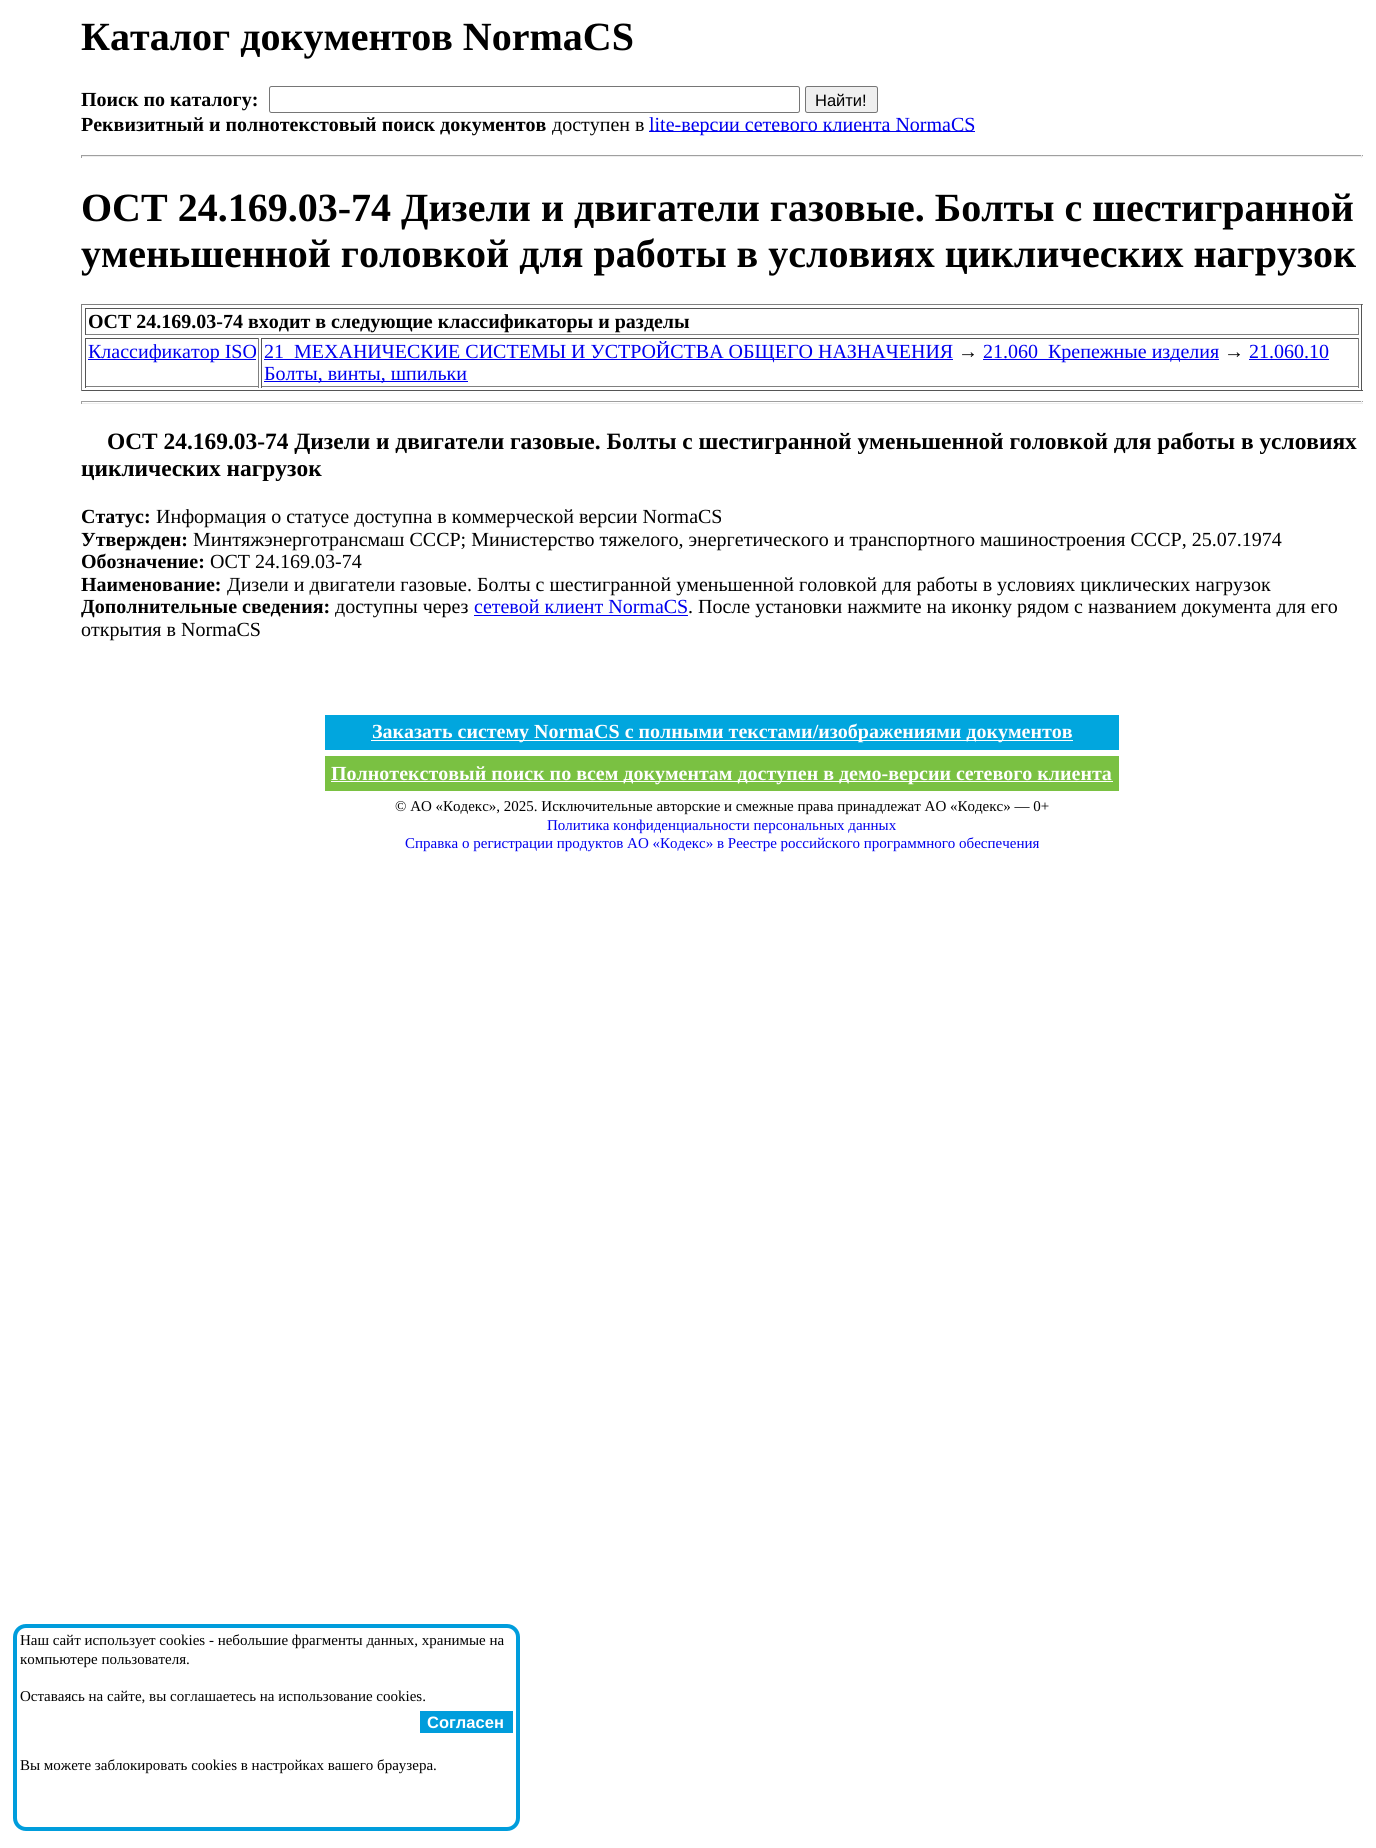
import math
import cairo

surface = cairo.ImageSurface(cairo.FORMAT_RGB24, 1376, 1848)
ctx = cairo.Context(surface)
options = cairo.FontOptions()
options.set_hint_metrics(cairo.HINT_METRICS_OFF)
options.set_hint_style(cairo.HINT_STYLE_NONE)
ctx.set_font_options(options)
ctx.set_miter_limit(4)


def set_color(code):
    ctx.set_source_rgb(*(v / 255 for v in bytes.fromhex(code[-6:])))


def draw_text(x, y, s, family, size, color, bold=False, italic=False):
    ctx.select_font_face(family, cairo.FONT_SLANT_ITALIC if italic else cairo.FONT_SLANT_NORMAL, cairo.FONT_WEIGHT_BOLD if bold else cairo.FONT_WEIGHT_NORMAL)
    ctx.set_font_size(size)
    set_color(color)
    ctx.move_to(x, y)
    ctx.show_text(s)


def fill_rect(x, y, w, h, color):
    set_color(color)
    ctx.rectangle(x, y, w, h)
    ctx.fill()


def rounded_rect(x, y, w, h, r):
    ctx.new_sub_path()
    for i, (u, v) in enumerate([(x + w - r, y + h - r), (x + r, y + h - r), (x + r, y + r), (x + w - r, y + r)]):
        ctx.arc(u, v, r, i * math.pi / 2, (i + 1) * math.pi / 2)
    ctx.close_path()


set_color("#ffffff")
ctx.paint()
draw_text(81, 50, "Каталог документов NormaCS", "Liberation Serif", 40, "#000000", bold=True)
draw_text(81, 106, "Поиск по каталогу:", "Liberation Serif", 20, "#000000", bold=True)
rounded_rect(269.5, 86.5, 530, 26, 2)
set_color("#767676")
ctx.set_line_width(1)
ctx.stroke()
set_color("#efefef")
rounded_rect(805.5, 86.5, 72, 26, 2)
ctx.fill_preserve()
set_color("#767676")
ctx.stroke()
draw_text(815, 106, "Найти!", "Liberation Sans", 16.5, "#000000")
draw_text(81, 131, "Реквизитный и полнотекстовый поиск документов", "Liberation Serif", 20, "#000000", bold=True)
draw_text(552, 131, "доступен в", "Liberation Serif", 20, "#000000")
fill_rect(649, 131, 326, 1, "#0000ee")
draw_text(649, 131, "lite-версии сетевого клиента NormaCS", "Liberation Serif", 20, "#0000ee")
fill_rect(81, 155, 1282, 1, "#9f9f9f")
fill_rect(1361, 155, 1, 3, "#eeeeee")
fill_rect(81, 156, 1282, 1, "#eeeeee")
fill_rect(81, 155, 1, 3, "#9f9f9f")
draw_text(81, 221, "ОСТ 24.169.03-74 Дизели и двигатели газовые. Болты с шестигранной", "Liberation Serif", 40, "#000000", bold=True)
draw_text(81, 267, "уменьшенной головкой для работы в условиях циклических нагрузок", "Liberation Serif", 40, "#000000", bold=True)
fill_rect(81, 304, 1282, 1, "#808080")
fill_rect(1361, 304, 1, 87, "#555555")
fill_rect(81, 390, 1282, 1, "#555555")
fill_rect(81, 304, 1, 87, "#808080")
fill_rect(85, 308, 1274, 1, "#555555")
fill_rect(1358, 308, 1, 27, "#808080")
fill_rect(85, 334, 1274, 1, "#808080")
fill_rect(85, 308, 1, 27, "#555555")
draw_text(88, 328, "ОСТ 24.169.03-74 входит в следующие классификаторы и разделы", "Liberation Serif", 20, "#000000", bold=True)
fill_rect(85, 338, 174, 1, "#555555")
fill_rect(258, 338, 1, 50, "#808080")
fill_rect(85, 386, 174, 1, "#808080")
fill_rect(85, 338, 1, 50, "#555555")
fill_rect(88, 359, 168, 1, "#0000ee")
draw_text(88, 358, "Классификатор ISO", "Liberation Serif", 20, "#0000ee")
fill_rect(261, 338, 1098, 1, "#555555")
fill_rect(1358, 338, 1, 50, "#808080")
fill_rect(261, 386, 1098, 1, "#808080")
fill_rect(261, 338, 1, 50, "#555555")
fill_rect(264, 359, 689, 1, "#0000ee")
draw_text(264, 358, "21  МЕХАНИЧЕСКИЕ СИСТЕМЫ И УСТРОЙСТВА ОБЩЕГО НАЗНАЧЕНИЯ", "Liberation Serif", 20, "#0000ee")
draw_text(958, 358, "→", "Liberation Serif", 20, "#000000")
fill_rect(983, 359, 236, 1, "#0000ee")
draw_text(983, 358, "21.060  Крепежные изделия", "Liberation Serif", 20, "#0000ee")
draw_text(1224, 358, "→", "Liberation Serif", 20, "#000000")
draw_text(1249, 358, "21.060.10", "Liberation Serif", 20, "#0000ee")
fill_rect(1249, 359, 80, 1, "#0000ee")
fill_rect(264, 381, 204, 1, "#0000ee")
draw_text(264, 380, "Болты, винты, шпильки", "Liberation Serif", 20, "#0000ee")
fill_rect(81, 401, 1282, 1, "#9f9f9f")
fill_rect(1361, 401, 1, 3, "#eeeeee")
fill_rect(81, 403, 1282, 1, "#eeeeee")
fill_rect(81, 401, 1, 3, "#9f9f9f")
draw_text(107, 449, "ОСТ 24.169.03-74 Дизели и двигатели газовые. Болты с шестигранной уменьшенной головкой для работы в условиях", "Liberation Serif", 23.4, "#000000", bold=True)
draw_text(81, 476, "циклических нагрузок", "Liberation Serif", 23.4, "#000000", bold=True)
draw_text(81, 523, "Статус:", "Liberation Serif", 20, "#000000", bold=True)
draw_text(156, 523, "Информация о статусе доступна в коммерческой версии NormaCS", "Liberation Serif", 20, "#000000")
draw_text(81, 546, "Утвержден:", "Liberation Serif", 20, "#000000", bold=True)
draw_text(193, 546, "Минтяжэнерготрансмаш СССР; Министерство тяжелого, энергетического и транспортного машиностроения СССР, 25.07.1974", "Liberation Serif", 20, "#000000")
draw_text(81, 568, "Обозначение:", "Liberation Serif", 20, "#000000", bold=True)
draw_text(210, 568, "ОСТ 24.169.03-74", "Liberation Serif", 20, "#000000")
draw_text(81, 591, "Наименование:", "Liberation Serif", 20, "#000000", bold=True)
draw_text(227, 591, "Дизели и двигатели газовые. Болты с шестигранной уменьшенной головкой для работы в условиях циклических нагрузок", "Liberation Serif", 20, "#000000")
draw_text(81, 613, "Дополнительные сведения:", "Liberation Serif", 20, "#000000", bold=True)
draw_text(335, 613, "доступны через", "Liberation Serif", 20, "#000000")
draw_text(474, 613, "сетевой клиент NormaCS", "Liberation Serif", 20, "#0000ee")
fill_rect(474, 615, 214, 1, "#0000ee")
draw_text(688, 613, ". После установки нажмите на иконку рядом с названием документа для его", "Liberation Serif", 20, "#000000")
draw_text(81, 636, "открытия в NormaCS", "Liberation Serif", 20, "#000000")
fill_rect(325, 715, 794, 35, "#01a6de")
fill_rect(371, 740, 702, 1, "#ffffff")
draw_text(372, 738, "Заказать систему NormaCS с полными текстами/изображениями документов", "Liberation Serif", 20, "#ffffff", bold=True)
fill_rect(325, 756, 794, 35, "#7ac142")
fill_rect(331, 781, 782, 1, "#ffffff")
draw_text(331, 780, "Полнотекстовый поиск по всем документам доступен в демо-версии сетевого клиента", "Liberation Serif", 20, "#ffffff", bold=True)
draw_text(395, 811, "© АО «Кодекс», 2025. Исключительные авторские и смежные права принадлежат АО «Кодекс» — 0+", "Liberation Serif", 15, "#000000")
draw_text(547, 830, "Политика конфиденциальности персональных данных", "Liberation Serif", 15, "#0000ee")
draw_text(405, 848, "Справка о регистрации продуктов АО «Кодекс» в Реестре российского программного обеспечения", "Liberation Serif", 15, "#0000ee")
rounded_rect(15, 1626, 503, 203, 11)
set_color("#009ddc")
ctx.set_line_width(4)
ctx.stroke()
draw_text(20, 1645, "Наш сайт использует cookies - небольшие фрагменты данных, хранимые на", "Liberation Serif", 15, "#000000")
draw_text(20, 1664, "компьютере пользователя.", "Liberation Serif", 15, "#000000")
draw_text(20, 1701, "Оставаясь на сайте, вы соглашаетесь на использование cookies.", "Liberation Serif", 15, "#000000")
fill_rect(420, 1711, 93, 22, "#009ddc")
draw_text(427, 1728, "Согласен", "Liberation Sans", 16.5, "#ffffff", bold=True)
draw_text(20, 1770, "Вы можете заблокировать cookies в настройках вашего браузера.", "Liberation Serif", 15, "#000000")
surface.write_to_png("output.png")
